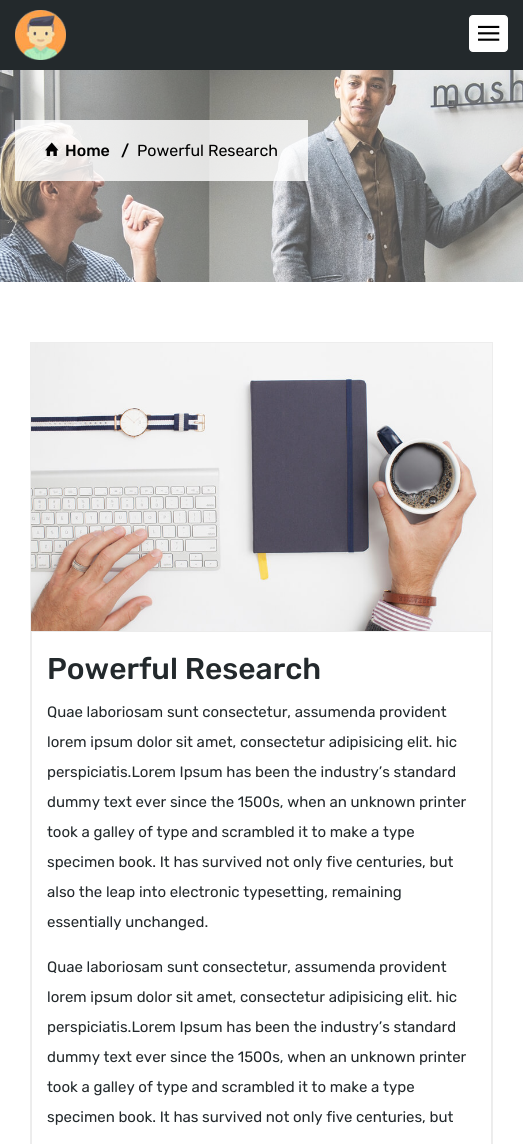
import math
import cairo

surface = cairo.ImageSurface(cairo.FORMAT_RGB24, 523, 1144)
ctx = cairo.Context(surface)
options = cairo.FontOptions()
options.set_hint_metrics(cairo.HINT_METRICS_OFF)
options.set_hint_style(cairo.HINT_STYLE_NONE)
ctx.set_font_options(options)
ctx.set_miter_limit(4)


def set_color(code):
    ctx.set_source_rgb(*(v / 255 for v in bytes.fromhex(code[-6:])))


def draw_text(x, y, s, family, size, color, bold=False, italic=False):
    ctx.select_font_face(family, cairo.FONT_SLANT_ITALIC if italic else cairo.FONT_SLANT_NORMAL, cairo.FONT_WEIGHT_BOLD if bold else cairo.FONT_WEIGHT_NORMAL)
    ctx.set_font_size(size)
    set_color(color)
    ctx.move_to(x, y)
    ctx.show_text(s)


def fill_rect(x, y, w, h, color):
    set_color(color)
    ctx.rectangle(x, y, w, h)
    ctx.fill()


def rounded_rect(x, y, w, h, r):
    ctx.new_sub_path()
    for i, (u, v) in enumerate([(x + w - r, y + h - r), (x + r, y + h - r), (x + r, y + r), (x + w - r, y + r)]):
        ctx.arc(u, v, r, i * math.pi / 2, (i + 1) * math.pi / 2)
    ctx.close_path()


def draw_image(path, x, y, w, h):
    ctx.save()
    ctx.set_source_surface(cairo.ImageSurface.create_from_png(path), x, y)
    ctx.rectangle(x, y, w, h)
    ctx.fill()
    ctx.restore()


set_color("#ffffff")
ctx.paint()
fill_rect(0, 0, 523, 70, "#23292c")
draw_image("assets/img1.png", 15, 10, 51, 50)
set_color("#ffffff")
rounded_rect(469.5, 15.5, 38, 36, 3.5)
ctx.fill_preserve()
ctx.set_line_width(1)
ctx.stroke()
draw_image("assets/img2.png", 478, 25, 22, 16)
draw_image("assets/img3.png", 0, 70, 523, 212)
ctx.set_source_rgba(1, 1, 1, 0.8)
ctx.rectangle(15, 120, 293, 61)
ctx.fill()
draw_image("assets/img4.png", 45, 142, 14, 14)
draw_text(65, 156, "Home", "Rubik Medium", 16, "#000000")
draw_text(121, 156, "/", "Rubik Medium", 16, "#000000")
draw_text(137, 156, "Powerful Research", "Rubik", 16, "#000000")
ctx.rectangle(30.5, 342.5, 462, 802)
set_color("#ededed")
ctx.stroke()
draw_image("assets/img5.png", 31, 343, 461, 288)
ctx.rectangle(31.5, 631.5, 460, 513)
set_color("#ececec")
ctx.stroke()
draw_text(47, 679, "Powerful Research", "Rubik Medium", 30, "#23292c")
draw_text(47, 717, "Quae laboriosam sunt consectetur, assumenda provident", "Rubik", 15, "#23292c")
draw_text(47, 747, "lorem ipsum dolor sit amet, consectetur adipisicing elit. hic", "Rubik", 15, "#23292c")
draw_text(47, 777, "perspiciatis.Lorem Ipsum has been the industry’s standard", "Rubik", 15, "#23292c")
draw_text(47, 807, "dummy text ever since the 1500s, when an unknown printer", "Rubik", 15, "#23292c")
draw_text(47, 837, "took a galley of type and scrambled it to make a type", "Rubik", 15, "#23292c")
draw_text(47, 867, "specimen book. It has survived not only five centuries, but", "Rubik", 15, "#23292c")
draw_text(47, 897, "also the leap into electronic typesetting, remaining", "Rubik", 15, "#23292c")
draw_text(47, 927, "essentially unchanged.", "Rubik", 15, "#23292c")
draw_text(47, 972, "Quae laboriosam sunt consectetur, assumenda provident", "Rubik", 15, "#23292c")
draw_text(47, 1002, "lorem ipsum dolor sit amet, consectetur adipisicing elit. hic", "Rubik", 15, "#23292c")
draw_text(47, 1032, "perspiciatis.Lorem Ipsum has been the industry’s standard", "Rubik", 15, "#23292c")
draw_text(47, 1062, "dummy text ever since the 1500s, when an unknown printer", "Rubik", 15, "#23292c")
draw_text(47, 1092, "took a galley of type and scrambled it to make a type", "Rubik", 15, "#23292c")
draw_text(47, 1122, "specimen book. It has survived not only five centuries, but", "Rubik", 15, "#23292c")
surface.write_to_png("output.png")
